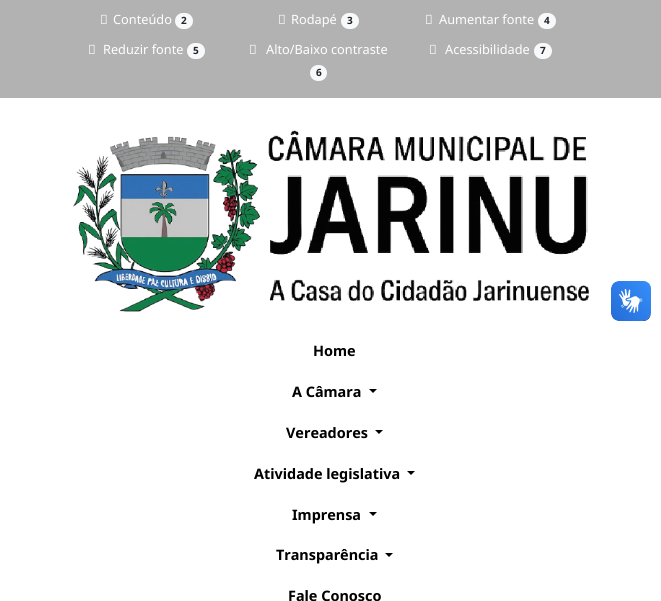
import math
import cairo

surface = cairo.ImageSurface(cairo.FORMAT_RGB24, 661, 601)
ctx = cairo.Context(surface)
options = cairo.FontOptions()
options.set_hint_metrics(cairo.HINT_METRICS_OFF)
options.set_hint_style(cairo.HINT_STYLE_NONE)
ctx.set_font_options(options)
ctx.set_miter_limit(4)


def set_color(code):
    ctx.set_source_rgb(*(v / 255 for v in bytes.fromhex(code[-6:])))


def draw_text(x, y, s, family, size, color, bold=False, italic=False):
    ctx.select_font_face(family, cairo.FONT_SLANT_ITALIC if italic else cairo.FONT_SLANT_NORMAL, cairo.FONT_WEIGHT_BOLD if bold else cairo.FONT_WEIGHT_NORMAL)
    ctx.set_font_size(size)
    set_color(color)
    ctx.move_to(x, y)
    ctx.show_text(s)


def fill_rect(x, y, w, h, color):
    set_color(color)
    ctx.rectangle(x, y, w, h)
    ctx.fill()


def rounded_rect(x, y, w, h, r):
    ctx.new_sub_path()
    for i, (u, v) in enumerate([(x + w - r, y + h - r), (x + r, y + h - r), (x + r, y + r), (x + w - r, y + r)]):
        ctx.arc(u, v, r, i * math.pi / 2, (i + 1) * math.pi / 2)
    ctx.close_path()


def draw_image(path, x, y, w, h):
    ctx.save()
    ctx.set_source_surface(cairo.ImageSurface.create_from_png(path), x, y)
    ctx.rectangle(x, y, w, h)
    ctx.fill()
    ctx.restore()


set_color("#ffffff")
ctx.paint()
fill_rect(0, 0, 661, 98, "#b2b2b2")
draw_image("assets/img1.png", 101, 14, 6, 10)
draw_text(113, 24, "Conteúdo", "Noto Sans", 12.75, "#ffffff")
set_color("#f8f9fa")
rounded_rect(175, 13, 18, 16, 8)
ctx.fill()
draw_text(181, 24, "2", "Noto Sans", 10, "#212529", bold=True)
draw_image("assets/img1.png", 279, 14, 6, 10)
draw_text(291, 24, "Rodapé", "Noto Sans", 12.75, "#ffffff")
set_color("#f8f9fa")
rounded_rect(341, 13, 18, 16, 8)
ctx.fill()
draw_text(347, 24, "3", "Noto Sans", 10, "#212529", bold=True)
draw_image("assets/img1.png", 426, 14, 6, 10)
draw_text(439, 24, "Aumentar fonte", "Noto Sans", 12.75, "#ffffff")
set_color("#f8f9fa")
rounded_rect(538, 13, 18, 16, 8)
ctx.fill()
draw_text(544, 24, "4", "Noto Sans", 10, "#212529", bold=True)
draw_image("assets/img1.png", 89, 44, 6, 10)
draw_text(103, 54, "Reduzir fonte", "Noto Sans", 12.75, "#ffffff")
set_color("#f8f9fa")
rounded_rect(187, 43, 18, 16, 8)
ctx.fill()
draw_text(193, 54, "5", "Noto Sans", 10, "#212529", bold=True)
draw_image("assets/img1.png", 250, 44, 6, 10)
draw_text(266, 54, "Alto/Baixo contraste", "Noto Sans", 12.75, "#ffffff")
set_color("#f8f9fa")
rounded_rect(310, 65, 17, 16, 8)
ctx.fill()
draw_text(316, 76, "6", "Noto Sans", 10, "#212529", bold=True)
draw_image("assets/img1.png", 430, 44, 6, 10)
draw_text(445, 54, "Acessibilidade", "Noto Sans", 12.75, "#ffffff")
set_color("#f8f9fa")
rounded_rect(534, 43, 18, 16, 8)
ctx.fill()
draw_text(540, 54, "7", "Noto Sans", 10, "#212529", bold=True)
draw_image("assets/img2.png", 611, 281, 40, 40)
draw_image("assets/img3.png", 611, 281, 40, 40)
draw_image("assets/img4.png", 73, 130, 516, 182)
draw_text(313, 356, "Home", "Noto Sans", 14.4, "#000000", bold=True)
draw_text(292, 397, "A Câmara", "Noto Sans", 14.4, "#000000", bold=True)
ctx.new_path()
ctx.move_to(369, 389)
ctx.line_to(377, 389)
ctx.line_to(373, 393)
ctx.close_path()
ctx.fill()
draw_text(286, 438, "Vereadores", "Noto Sans", 14.4, "#000000", bold=True)
ctx.new_path()
ctx.move_to(375, 430)
ctx.line_to(383, 430)
ctx.line_to(379, 434)
ctx.close_path()
ctx.fill()
draw_text(254, 479, "Atividade legislativa", "Noto Sans", 14.4, "#000000", bold=True)
ctx.new_path()
ctx.move_to(407, 471)
ctx.line_to(415, 471)
ctx.line_to(411, 475)
ctx.close_path()
ctx.fill()
draw_text(292, 520, "Imprensa", "Noto Sans", 14.4, "#000000", bold=True)
ctx.new_path()
ctx.move_to(369, 512)
ctx.line_to(377, 512)
ctx.line_to(373, 516)
ctx.close_path()
ctx.fill()
draw_text(276, 560, "Transparência", "Noto Sans", 14.4, "#000000", bold=True)
ctx.new_path()
ctx.move_to(385, 553)
ctx.line_to(393, 553)
ctx.line_to(389, 557)
ctx.close_path()
ctx.fill()
draw_text(288, 601, "Fale Conosco", "Noto Sans", 14.4, "#000000", bold=True)
surface.write_to_png("output.png")
